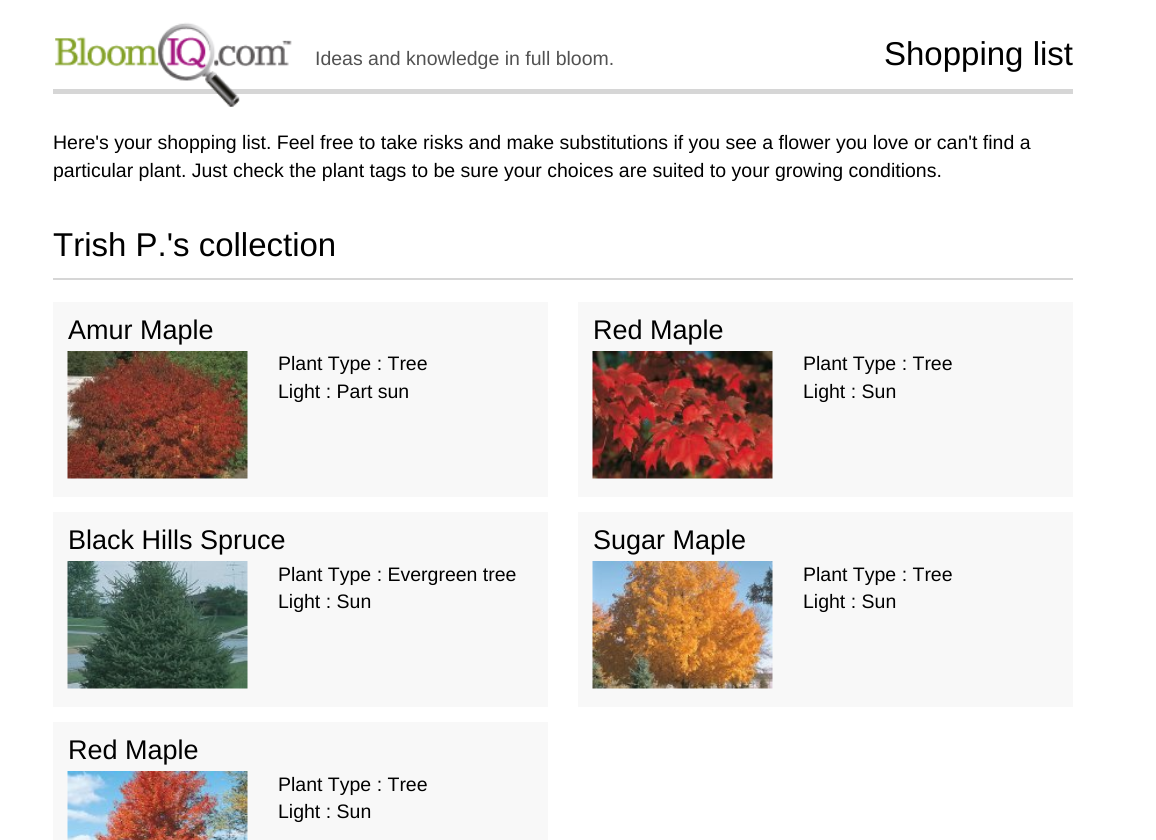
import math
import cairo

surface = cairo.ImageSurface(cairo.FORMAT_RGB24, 1156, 840)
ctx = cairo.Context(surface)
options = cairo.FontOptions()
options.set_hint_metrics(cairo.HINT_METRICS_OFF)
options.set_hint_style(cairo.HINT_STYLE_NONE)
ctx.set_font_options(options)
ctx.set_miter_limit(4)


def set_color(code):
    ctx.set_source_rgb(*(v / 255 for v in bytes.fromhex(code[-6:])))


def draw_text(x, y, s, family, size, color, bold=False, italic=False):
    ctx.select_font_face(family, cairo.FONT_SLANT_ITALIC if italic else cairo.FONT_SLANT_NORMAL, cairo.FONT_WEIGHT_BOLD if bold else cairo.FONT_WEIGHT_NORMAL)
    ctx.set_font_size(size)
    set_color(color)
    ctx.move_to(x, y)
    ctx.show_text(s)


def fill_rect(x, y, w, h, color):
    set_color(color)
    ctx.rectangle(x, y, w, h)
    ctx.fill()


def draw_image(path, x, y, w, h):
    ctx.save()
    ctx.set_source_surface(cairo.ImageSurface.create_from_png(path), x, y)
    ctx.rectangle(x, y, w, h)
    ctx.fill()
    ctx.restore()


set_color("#ffffff")
ctx.paint()
fill_rect(53, 89, 1020, 5, "#d6d6d6")
draw_image("assets/img1.png", 55, 22, 237, 85)
draw_text(315, 65, "Ideas and knowledge in full bloom.", "Liberation Sans", 19.5, "#525252")
draw_text(884, 65, "Shopping list", "Liberation Sans", 33, "#000000")
draw_text(53, 149, "Here's your shopping list. Feel free to take risks and make substitutions if you see a flower you love or can't find a", "Liberation Sans", 19.5, "#000000")
draw_text(53, 177, "particular plant. Just check the plant tags to be sure your choices are suited to your growing conditions.", "Liberation Sans", 19.5, "#000000")
fill_rect(53, 278, 1020, 2, "#d6d6d6")
draw_text(53, 256, "Trish P.'s collection", "Liberation Sans", 33, "#000000")
fill_rect(53, 302, 495, 195, "#f8f8f8")
draw_text(68, 339, "Amur Maple", "Liberation Sans", 27, "#000000")
draw_image("assets/img2.png", 67, 351, 181, 128)
draw_text(278, 370, "Plant Type : Tree", "Liberation Sans", 19.5, "#000000")
draw_text(278, 398, "Light : Part sun", "Liberation Sans", 19.5, "#000000")
fill_rect(578, 302, 495, 195, "#f8f8f8")
draw_text(593, 339, "Red Maple", "Liberation Sans", 27, "#000000")
draw_image("assets/img3.png", 592, 351, 181, 128)
draw_text(803, 370, "Plant Type : Tree", "Liberation Sans", 19.5, "#000000")
draw_text(803, 398, "Light : Sun", "Liberation Sans", 19.5, "#000000")
fill_rect(53, 512, 495, 195, "#f8f8f8")
draw_text(68, 549, "Black Hills Spruce", "Liberation Sans", 27, "#000000")
draw_image("assets/img4.png", 67, 561, 181, 128)
draw_text(278, 581, "Plant Type : Evergreen tree", "Liberation Sans", 19.5, "#000000")
draw_text(278, 608, "Light : Sun", "Liberation Sans", 19.5, "#000000")
fill_rect(578, 512, 495, 195, "#f8f8f8")
draw_text(593, 549, "Sugar Maple", "Liberation Sans", 27, "#000000")
draw_image("assets/img5.png", 592, 561, 181, 128)
draw_text(803, 581, "Plant Type : Tree", "Liberation Sans", 19.5, "#000000")
draw_text(803, 608, "Light : Sun", "Liberation Sans", 19.5, "#000000")
fill_rect(53, 722, 495, 118, "#f8f8f8")
draw_text(68, 759, "Red Maple", "Liberation Sans", 27, "#000000")
draw_image("assets/img6.png", 67, 771, 181, 69)
draw_text(278, 791, "Plant Type : Tree", "Liberation Sans", 19.5, "#000000")
draw_text(278, 818, "Light : Sun", "Liberation Sans", 19.5, "#000000")
surface.write_to_png("output.png")
